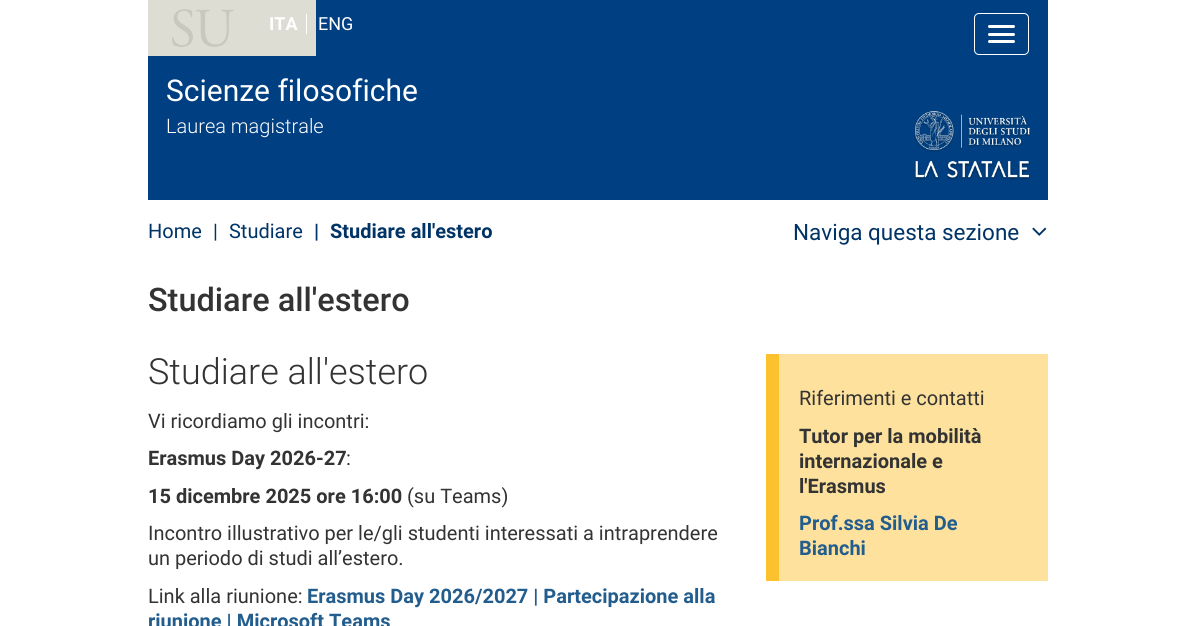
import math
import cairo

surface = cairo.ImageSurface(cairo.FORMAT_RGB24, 1194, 626)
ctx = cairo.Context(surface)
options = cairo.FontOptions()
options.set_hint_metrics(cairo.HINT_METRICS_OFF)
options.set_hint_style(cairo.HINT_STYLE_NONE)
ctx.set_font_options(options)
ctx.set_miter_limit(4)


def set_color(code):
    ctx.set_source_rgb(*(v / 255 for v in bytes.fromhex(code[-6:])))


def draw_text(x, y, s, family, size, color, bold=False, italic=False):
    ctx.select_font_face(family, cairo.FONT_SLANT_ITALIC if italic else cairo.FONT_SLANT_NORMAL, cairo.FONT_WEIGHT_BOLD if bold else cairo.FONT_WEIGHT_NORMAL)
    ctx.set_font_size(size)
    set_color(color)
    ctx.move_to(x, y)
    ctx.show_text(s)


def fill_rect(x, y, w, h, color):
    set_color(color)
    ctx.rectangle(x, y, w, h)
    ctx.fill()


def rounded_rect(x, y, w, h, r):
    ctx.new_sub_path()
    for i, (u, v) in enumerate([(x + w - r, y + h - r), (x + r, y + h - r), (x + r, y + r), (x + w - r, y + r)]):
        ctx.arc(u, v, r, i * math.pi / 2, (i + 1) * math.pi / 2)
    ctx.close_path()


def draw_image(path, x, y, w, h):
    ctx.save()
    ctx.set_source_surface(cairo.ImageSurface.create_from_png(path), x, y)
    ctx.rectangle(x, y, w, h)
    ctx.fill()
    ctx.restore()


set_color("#ffffff")
ctx.paint()
fill_rect(148, 0, 900, 200, "#004082")
fill_rect(148, 0, 168, 56, "#deddd3")
draw_image("assets/img1.png", 172, 9, 62, 38)
draw_text(269, 30, "ITA", "Roboto", 18, "#ffffff", bold=True)
fill_rect(306, 14, 1, 20, "#ffffff")
draw_text(318, 30, "ENG", "Roboto", 18, "#ffffff")
draw_text(166, 101, "Scienze filosofiche", "Roboto", 30, "#ffffff")
draw_text(166, 133, "Laurea magistrale", "Roboto Light", 20, "#ffffff")
draw_image("assets/img2.png", 914, 111, 117, 70)
rounded_rect(974.5, 13.5, 54, 41, 4.5)
ctx.set_line_width(1)
ctx.stroke()
rounded_rect(988, 25, 27, 3, 1.5)
ctx.fill()
rounded_rect(988, 33, 27, 3, 1.5)
ctx.fill()
rounded_rect(988, 40, 27, 3, 1.5)
ctx.fill()
draw_text(148, 238, "Home", "Roboto", 20, "#003366")
draw_text(213, 238, "|", "Roboto", 20, "#003366")
draw_text(229, 238, "Studiare", "Roboto", 20, "#003366")
draw_text(314, 238, "|", "Roboto", 20, "#003366", bold=True)
draw_text(330, 238, "Studiare all'estero", "Roboto", 20, "#003366", bold=True)
draw_text(793, 240, "Naviga questa sezione", "Roboto", 22.5, "#003366")
draw_image("assets/img3.png", 1032, 227, 15, 9)
draw_text(148, 311, "Studiare all'estero", "Roboto Medium", 32.5, "#333333")
draw_text(148, 384, "Studiare all'estero", "Roboto Light", 36, "#333333")
draw_text(148, 428, "Vi ricordiamo gli incontri:", "Roboto", 20, "#333333")
draw_text(148, 465, "Erasmus Day 2026-27", "Roboto", 20, "#333333", bold=True)
draw_text(346, 465, ":", "Roboto", 20, "#333333")
draw_text(148, 503, "15 dicembre 2025 ore 16:00", "Roboto", 20, "#333333", bold=True)
draw_text(407, 503, "(su Teams)", "Roboto", 20, "#333333")
draw_text(148, 540, "Incontro illustrativo per le/gli studenti interessati a intraprendere", "Roboto", 20, "#333333")
draw_text(148, 565, "un periodo di studi all’estero.", "Roboto", 20, "#333333")
draw_text(148, 603, "Link alla riunione:", "Roboto", 20, "#333333")
draw_text(307, 603, "Erasmus Day 2026/2027 | Partecipazione alla", "Roboto", 20, "#225d8e", bold=True)
draw_text(148, 628, "riunione | Microsoft Teams", "Roboto", 20, "#225d8e", bold=True)
fill_rect(779, 354, 269, 227, "#fde19d")
fill_rect(766, 354, 13, 227, "#fcc22d")
draw_text(799, 405, "Riferimenti e contatti", "Roboto", 20, "#333333")
draw_text(799, 443, "Tutor per la mobilità", "Roboto", 20, "#333333", bold=True)
draw_text(799, 468, "internazionale e", "Roboto", 20, "#333333", bold=True)
draw_text(799, 493, "l'Erasmus", "Roboto", 20, "#333333", bold=True)
draw_text(799, 530, "Prof.ssa Silvia De", "Roboto", 20, "#225d8e", bold=True)
draw_text(799, 555, "Bianchi", "Roboto", 20, "#225d8e", bold=True)
surface.write_to_png("output.png")
